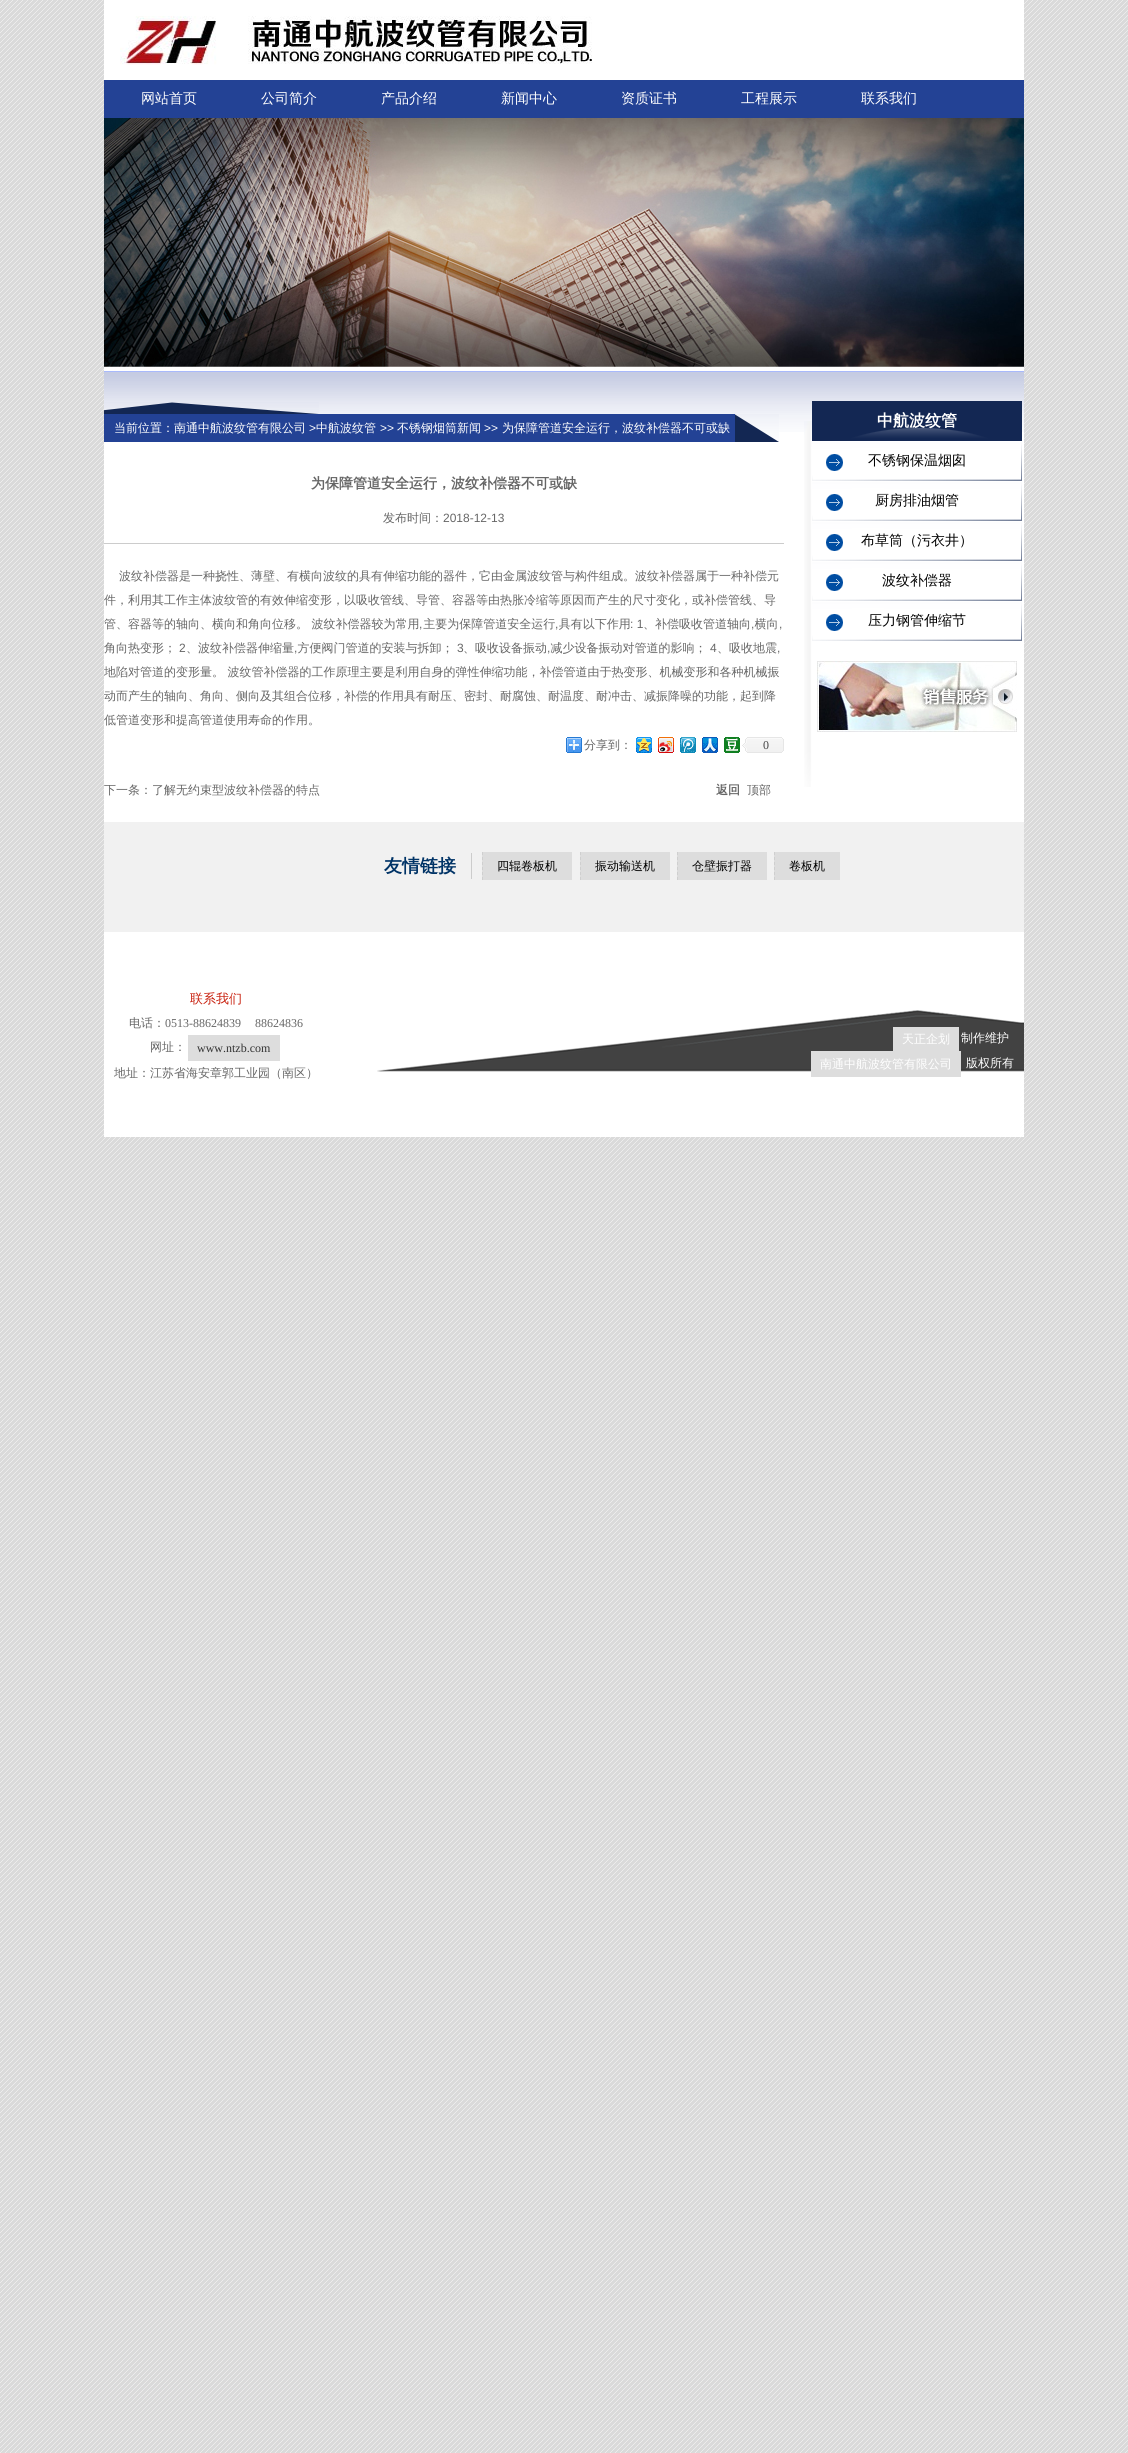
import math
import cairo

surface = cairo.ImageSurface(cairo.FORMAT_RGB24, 1128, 2453)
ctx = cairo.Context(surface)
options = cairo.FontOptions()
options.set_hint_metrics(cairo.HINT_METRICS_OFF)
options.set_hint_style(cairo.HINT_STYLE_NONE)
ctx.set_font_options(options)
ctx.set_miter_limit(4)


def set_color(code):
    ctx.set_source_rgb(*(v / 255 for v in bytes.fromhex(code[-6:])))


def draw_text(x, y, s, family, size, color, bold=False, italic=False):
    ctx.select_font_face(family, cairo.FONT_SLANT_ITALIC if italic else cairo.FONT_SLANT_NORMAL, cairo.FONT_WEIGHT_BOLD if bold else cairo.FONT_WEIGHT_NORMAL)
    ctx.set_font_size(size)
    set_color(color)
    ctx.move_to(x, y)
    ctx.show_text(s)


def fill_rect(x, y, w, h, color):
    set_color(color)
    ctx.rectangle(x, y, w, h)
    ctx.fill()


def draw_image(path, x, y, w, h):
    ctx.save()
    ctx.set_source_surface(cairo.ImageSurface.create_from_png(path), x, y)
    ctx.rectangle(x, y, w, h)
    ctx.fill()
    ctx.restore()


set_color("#ffffff")
ctx.paint()
draw_image("assets/img1.png", 0, 0, 1128, 2453)
fill_rect(104, 0, 920, 1137, "#ffffff")
draw_image("assets/img2.png", 120, 16, 472, 49)
fill_rect(104, 80, 920, 38, "#234295")
draw_text(141, 103, "网站首页", "WenQuanYi Zen Hei Medium", 14, "#ffffff")
draw_text(261, 103, "公司简介", "WenQuanYi Zen Hei Medium", 14, "#ffffff")
draw_text(381, 103, "产品介绍", "WenQuanYi Zen Hei Medium", 14, "#ffffff")
draw_text(501, 103, "新闻中心", "WenQuanYi Zen Hei Medium", 14, "#ffffff")
draw_text(621, 103, "资质证书", "WenQuanYi Zen Hei Medium", 14, "#ffffff")
draw_text(741, 103, "工程展示", "WenQuanYi Zen Hei Medium", 14, "#ffffff")
draw_text(861, 103, "联系我们", "WenQuanYi Zen Hei Medium", 14, "#ffffff")
draw_image("assets/img3.png", 104, 118, 920, 249)
draw_image("assets/img4.png", 104, 371, 920, 61)
draw_image("assets/img5.png", 104, 402, 215, 12)
fill_rect(104, 414, 631, 28, "#234295")
draw_text(114, 432, "当前位置：南通中航波纹管有限公司", "WenQuanYi Zen Hei Medium", 12, "#ffffff")
draw_text(309, 432, ">", "Liberation Sans", 12, "#ffffff")
draw_text(316, 432, "中航波纹管", "WenQuanYi Zen Hei Medium", 12, "#ffffff")
draw_text(380, 432, ">>", "Liberation Sans", 12, "#ffffff")
draw_text(397, 432, "不锈钢烟筒新闻", "WenQuanYi Zen Hei Medium", 12, "#ffffff")
draw_text(484, 432, ">>", "Liberation Sans", 12, "#ffffff")
draw_text(502, 432, "为保障管道安全运行，波纹补偿器不可或缺", "WenQuanYi Zen Hei Medium", 12, "#ffffff")
draw_image("assets/img6.png", 735, 414, 44, 28)
draw_text(311, 488, "为保障管道安全运行，波纹补偿器不可或缺", "WenQuanYi Zen Hei", 14, "#666666", bold=True)
draw_text(383, 522, "发布时间：", "WenQuanYi Zen Hei Medium", 12, "#666666")
draw_text(443, 522, "2018-12-13", "Liberation Sans", 12, "#666666")
fill_rect(104, 543, 680, 1, "#cccccc")
draw_text(119, 580, "波纹补偿器是一种挠性、薄壁、有横向波纹的具有伸缩功能的器件，它由金属波纹管与构件组成。波纹补偿器属于一种补偿元", "WenQuanYi Zen Hei Medium", 12, "#666666")
draw_text(104, 604, "件，利用其工作主体波纹管的有效伸缩变形，以吸收管线、导管、容器等由热胀冷缩等原因而产生的尺寸变化，或补偿管线、导", "WenQuanYi Zen Hei Medium", 12, "#666666")
draw_text(104, 628, "管、容器等的轴向、横向和角向位移。 波纹补偿器较为常用 主要为保障管道安全运行 具有以下作用", "WenQuanYi Zen Hei Medium", 12, "#666666")
draw_text(630, 628, ": 1", "Liberation Sans", 12, "#666666")
draw_text(643, 628, "、补偿吸收管道轴向 横向", "WenQuanYi Zen Hei Medium", 12, "#666666")
draw_text(419, 628, ",", "Liberation Sans", 12, "#666666")
draw_text(555, 628, ",", "Liberation Sans", 12, "#666666")
draw_text(751, 628, ",", "Liberation Sans", 12, "#666666")
draw_text(779, 628, ",", "Liberation Sans", 12, "#666666")
draw_text(104, 652, "角向热变形；", "WenQuanYi Zen Hei Medium", 12, "#666666")
draw_text(179, 652, "2", "Liberation Sans", 12, "#666666")
draw_text(186, 652, "、波纹补偿器伸缩量 方便阀门管道的安装与拆卸；", "WenQuanYi Zen Hei Medium", 12, "#666666")
draw_text(457, 652, "3", "Liberation Sans", 12, "#666666")
draw_text(463, 652, "、吸收设备振动 减少设备振动对管道的影响；", "WenQuanYi Zen Hei Medium", 12, "#666666")
draw_text(710, 652, "4", "Liberation Sans", 12, "#666666")
draw_text(717, 652, "、吸收地震", "WenQuanYi Zen Hei Medium", 12, "#666666")
draw_text(294, 652, ",", "Liberation Sans", 12, "#666666")
draw_text(547, 652, ",", "Liberation Sans", 12, "#666666")
draw_text(777, 652, ",", "Liberation Sans", 12, "#666666")
draw_text(104, 676, "地陷对管道的变形量。 波纹管补偿器的工作原理主要是利用自身的弹性伸缩功能，补偿管道由于热变形、机械变形和各种机械振", "WenQuanYi Zen Hei Medium", 12, "#666666")
draw_text(104, 700, "动而产生的轴向、角向、侧向及其组合位移，补偿的作用具有耐压、密封、耐腐蚀、耐温度、耐冲击、减振降噪的功能，起到降", "WenQuanYi Zen Hei Medium", 12, "#666666")
draw_text(104, 724, "低管道变形和提高管道使用寿命的作用。", "WenQuanYi Zen Hei Medium", 12, "#666666")
draw_image("assets/img7.png", 566, 737, 16, 16)
draw_text(584, 749, "分享到：", "WenQuanYi Zen Hei Medium", 12, "#666666")
draw_image("assets/img8.png", 636, 737, 16, 16)
draw_image("assets/img9.png", 658, 737, 16, 16)
draw_image("assets/img10.png", 680, 737, 16, 16)
draw_image("assets/img11.png", 702, 737, 16, 16)
draw_image("assets/img12.png", 724, 737, 16, 16)
draw_image("assets/img13.png", 742, 737, 42, 16)
draw_text(763, 749, "0", "Liberation Serif", 12, "#454545")
draw_text(104, 794, "下一条：了解无约束型波纹补偿器的特点", "WenQuanYi Zen Hei Medium", 12, "#666666")
draw_text(716, 794, "返回", "WenQuanYi Zen Hei", 12, "#666666", bold=True)
draw_text(747, 794, "顶部", "WenQuanYi Zen Hei Medium", 12, "#666666")
draw_image("assets/img14.png", 804, 421, 8, 366)
draw_image("assets/img15.png", 812, 401, 210, 40)
draw_text(877, 426, "中航波纹管", "WenQuanYi Zen Hei", 16, "#ffffff", bold=True)
draw_image("assets/img16.png", 812, 442, 210, 39)
draw_text(868, 465, "不锈钢保温烟囱", "WenQuanYi Zen Hei Medium", 14, "#000000")
draw_image("assets/img16.png", 812, 482, 210, 39)
draw_text(875, 505, "厨房排油烟管", "WenQuanYi Zen Hei Medium", 14, "#000000")
draw_image("assets/img16.png", 812, 522, 210, 39)
draw_text(861, 545, "布草筒（污衣井）", "WenQuanYi Zen Hei Medium", 14, "#000000")
draw_image("assets/img16.png", 812, 562, 210, 39)
draw_text(882, 585, "波纹补偿器", "WenQuanYi Zen Hei Medium", 14, "#000000")
draw_image("assets/img16.png", 812, 602, 210, 39)
draw_text(868, 625, "压力钢管伸缩节", "WenQuanYi Zen Hei Medium", 14, "#000000")
draw_image("assets/img17.png", 817, 661, 200, 71)
fill_rect(104, 822, 920, 110, "#f1f1f1")
fill_rect(471, 853, 1, 26, "#cccccc")
draw_text(384, 872, "友情链接", "WenQuanYi Zen Hei", 18, "#003366", bold=True)
fill_rect(482, 852, 90, 28, "#dddddd")
ctx.new_path()
ctx.move_to(482.5, 852)
ctx.line_to(482.5, 880)
set_color("#cfcfcf")
ctx.set_line_width(1)
ctx.set_dash([3, 2])
ctx.stroke()
draw_text(497, 870, "四辊卷板机", "WenQuanYi Zen Hei Medium", 12, "#000000")
fill_rect(580, 852, 90, 28, "#dddddd")
ctx.new_path()
ctx.move_to(580.5, 852)
ctx.line_to(580.5, 880)
set_color("#cfcfcf")
ctx.stroke()
draw_text(595, 870, "振动输送机", "WenQuanYi Zen Hei Medium", 12, "#000000")
fill_rect(677, 852, 90, 28, "#dddddd")
ctx.new_path()
ctx.move_to(677.5, 852)
ctx.line_to(677.5, 880)
set_color("#cfcfcf")
ctx.stroke()
draw_text(692, 870, "仓壁振打器", "WenQuanYi Zen Hei Medium", 12, "#000000")
fill_rect(774, 852, 66, 28, "#dddddd")
ctx.new_path()
ctx.move_to(774.5, 852)
ctx.line_to(774.5, 880)
set_color("#cfcfcf")
ctx.stroke()
draw_text(789, 870, "卷板机", "WenQuanYi Zen Hei Medium", 12, "#000000")
draw_image("assets/img18.png", 377, 1010, 647, 62)
draw_text(190, 1003, "联系我们", "WenQuanYi Zen Hei Medium", 13, "#c8200e")
draw_text(129, 1027, "电话：", "WenQuanYi Zen Hei Medium", 12, "#666666")
draw_text(165, 1027, "0513-88624839", "Liberation Serif", 12, "#666666")
draw_text(255, 1027, "88624836", "Liberation Serif", 12, "#666666")
draw_text(150, 1051, "网址：", "WenQuanYi Zen Hei Medium", 12, "#666666")
fill_rect(188, 1035, 92, 26, "#dddddd")
draw_text(197, 1052, "www.ntzb.com", "Liberation Serif", 12, "#333333")
draw_text(114, 1077, "地址：江苏省海安章郭工业园（南区）", "WenQuanYi Zen Hei Medium", 12, "#666666")
fill_rect(893, 1027, 66, 24, "#dddddd")
draw_text(902, 1043, "天正企划", "WenQuanYi Zen Hei Medium", 12, "#ffffff")
draw_text(961, 1042, "制作维护", "WenQuanYi Zen Hei Medium", 12, "#ffffff")
fill_rect(811, 1051, 150, 26, "#dddddd")
draw_text(820, 1068, "南通中航波纹管有限公司", "WenQuanYi Zen Hei Medium", 12, "#ffffff")
draw_text(966, 1067, "版权所有", "WenQuanYi Zen Hei Medium", 12, "#ffffff")
surface.write_to_png("output.png")
